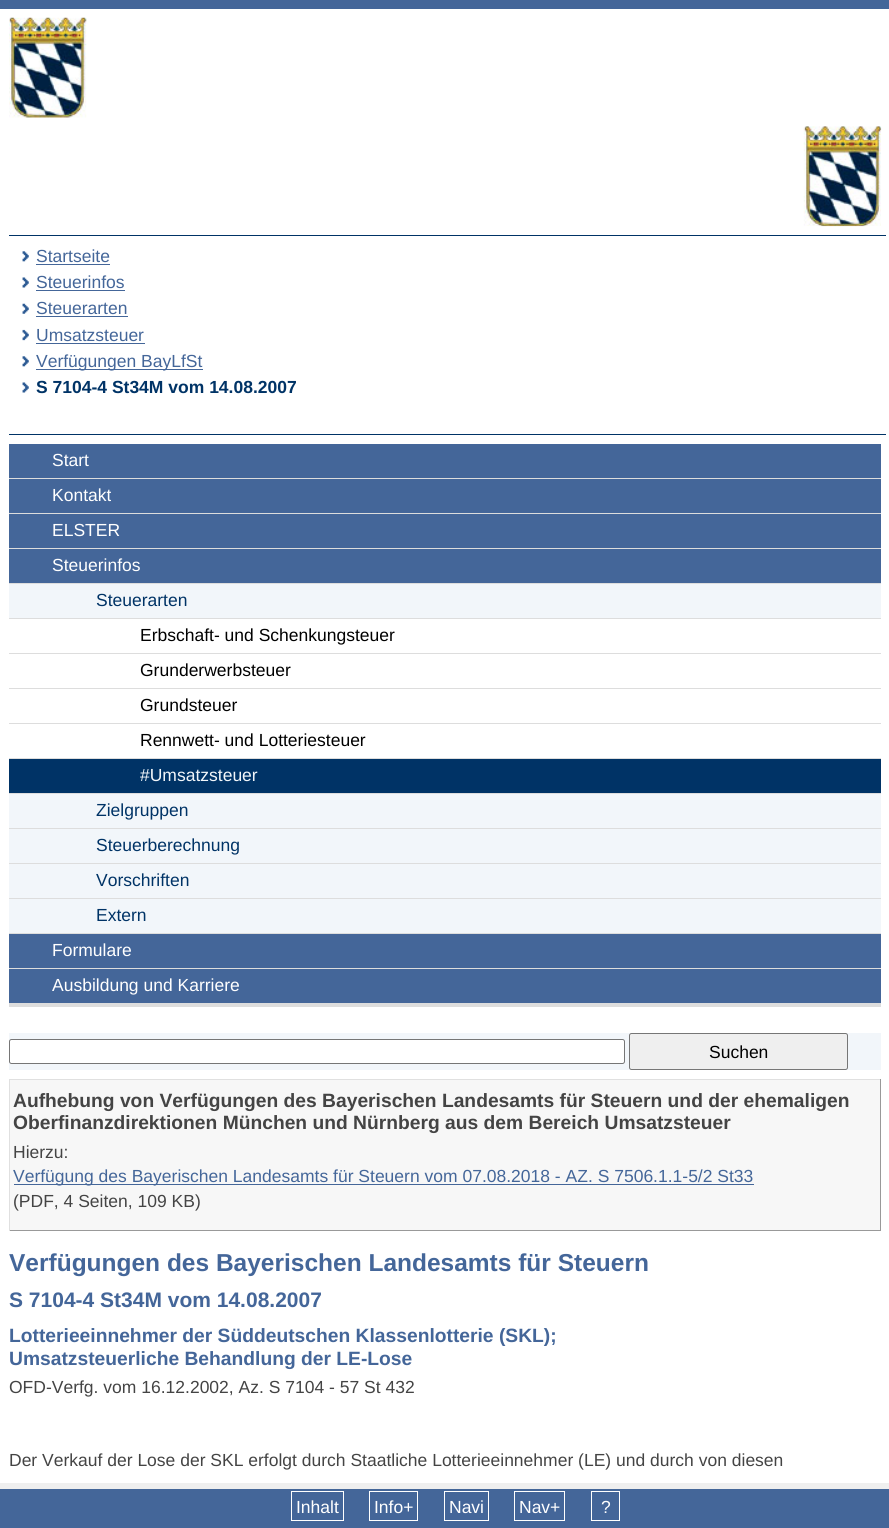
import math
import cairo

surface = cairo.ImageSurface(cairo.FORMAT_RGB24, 889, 1528)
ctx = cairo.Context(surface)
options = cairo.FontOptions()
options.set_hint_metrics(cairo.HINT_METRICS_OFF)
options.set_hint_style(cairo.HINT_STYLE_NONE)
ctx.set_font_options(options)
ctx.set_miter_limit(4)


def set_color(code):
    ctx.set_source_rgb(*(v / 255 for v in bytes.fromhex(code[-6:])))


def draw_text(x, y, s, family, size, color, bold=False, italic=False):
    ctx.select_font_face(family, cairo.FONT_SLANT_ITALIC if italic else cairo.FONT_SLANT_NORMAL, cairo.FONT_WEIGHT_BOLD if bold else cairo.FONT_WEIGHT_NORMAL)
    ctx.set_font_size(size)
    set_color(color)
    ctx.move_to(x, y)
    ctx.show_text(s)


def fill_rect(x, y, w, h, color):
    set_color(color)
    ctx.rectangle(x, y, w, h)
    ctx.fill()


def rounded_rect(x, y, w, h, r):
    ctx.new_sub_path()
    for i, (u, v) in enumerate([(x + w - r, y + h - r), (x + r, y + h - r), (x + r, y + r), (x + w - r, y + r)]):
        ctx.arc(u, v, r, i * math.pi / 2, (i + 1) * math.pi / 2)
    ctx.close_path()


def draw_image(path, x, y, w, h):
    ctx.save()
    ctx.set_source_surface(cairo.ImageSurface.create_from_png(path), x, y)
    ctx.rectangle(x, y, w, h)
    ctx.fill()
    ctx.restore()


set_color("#446699")
ctx.paint()
fill_rect(0, 9, 889, 1474, "#ffffff")
draw_image("assets/img1.png", 9, 17, 78, 101)
draw_image("assets/img2.png", 803, 126, 79, 101)
fill_rect(9, 235, 877, 1, "#003366")
fill_rect(9, 434, 877, 1, "#003366")
draw_image("assets/img3.png", 22, 251, 7, 11)
draw_text(36, 262, "Startseite", "Liberation Sans", 17.5, "#446699")
fill_rect(36, 264, 74, 1, "#446699")
draw_image("assets/img4.png", 22, 277, 7, 11)
draw_text(36, 288, "Steuerinfos", "Liberation Sans", 17.5, "#446699")
fill_rect(36, 290, 89, 1, "#446699")
draw_image("assets/img5.png", 22, 303, 7, 11)
draw_text(36, 314, "Steuerarten", "Liberation Sans", 17.5, "#446699")
fill_rect(36, 316, 92, 1, "#446699")
draw_image("assets/img6.png", 22, 329, 7, 12)
draw_text(36, 341, "Umsatzsteuer", "Liberation Sans", 17.5, "#446699")
fill_rect(36, 343, 109, 1, "#446699")
draw_image("assets/img3.png", 22, 356, 7, 11)
fill_rect(36, 369, 167, 1, "#446699")
draw_text(36, 367, "Verfügungen BayLfSt", "Liberation Sans", 17.5, "#446699")
draw_image("assets/img4.png", 22, 382, 7, 11)
draw_text(36, 393, "S 7104-4 St34M vom 14.08.2007", "Liberation Sans", 17.5, "#003366", bold=True)
fill_rect(9, 1003, 872, 4, "#dddddd")
fill_rect(9, 444, 872, 34, "#446699")
fill_rect(9, 478, 872, 1, "#dddddd")
draw_text(52, 466, "Start", "Liberation Sans", 17.5, "#ffffff")
fill_rect(9, 479, 872, 34, "#446699")
fill_rect(9, 513, 872, 1, "#dddddd")
draw_text(52, 501, "Kontakt", "Liberation Sans", 17.5, "#ffffff")
fill_rect(9, 514, 872, 34, "#446699")
fill_rect(9, 548, 872, 1, "#dddddd")
draw_text(52, 536, "ELSTER", "Liberation Sans", 17.5, "#ffffff")
fill_rect(9, 549, 872, 34, "#446699")
fill_rect(9, 583, 872, 1, "#dddddd")
draw_text(52, 571, "Steuerinfos", "Liberation Sans", 17.5, "#ffffff")
fill_rect(9, 584, 872, 34, "#f2f6fa")
fill_rect(9, 618, 872, 1, "#dddddd")
draw_text(96, 606, "Steuerarten", "Liberation Sans", 17.5, "#003366")
fill_rect(9, 653, 872, 1, "#dddddd")
draw_text(140, 641, "Erbschaft- und Schenkungsteuer", "Liberation Sans", 17.5, "#000000")
fill_rect(9, 688, 872, 1, "#dddddd")
draw_text(140, 676, "Grunderwerbsteuer", "Liberation Sans", 17.5, "#000000")
fill_rect(9, 723, 872, 1, "#dddddd")
draw_text(140, 711, "Grundsteuer", "Liberation Sans", 17.5, "#000000")
fill_rect(9, 758, 872, 1, "#dddddd")
draw_text(140, 746, "Rennwett- und Lotteriesteuer", "Liberation Sans", 17.5, "#000000")
fill_rect(9, 759, 872, 34, "#003366")
fill_rect(9, 793, 872, 1, "#dddddd")
draw_text(140, 781, "#Umsatzsteuer", "Liberation Sans", 17.5, "#f2f6fa")
fill_rect(9, 794, 872, 34, "#f2f6fa")
fill_rect(9, 828, 872, 1, "#dddddd")
draw_text(96, 816, "Zielgruppen", "Liberation Sans", 17.5, "#003366")
fill_rect(9, 829, 872, 34, "#f2f6fa")
fill_rect(9, 863, 872, 1, "#dddddd")
draw_text(96, 851, "Steuerberechnung", "Liberation Sans", 17.5, "#003366")
fill_rect(9, 864, 872, 34, "#f2f6fa")
fill_rect(9, 898, 872, 1, "#dddddd")
draw_text(96, 886, "Vorschriften", "Liberation Sans", 17.5, "#003366")
fill_rect(9, 899, 872, 34, "#f2f6fa")
fill_rect(9, 933, 872, 1, "#dddddd")
draw_text(96, 921, "Extern", "Liberation Sans", 17.5, "#003366")
fill_rect(9, 934, 872, 34, "#446699")
fill_rect(9, 968, 872, 1, "#dddddd")
draw_text(52, 956, "Formulare", "Liberation Sans", 17.5, "#ffffff")
fill_rect(9, 969, 872, 34, "#446699")
draw_text(52, 991, "Ausbildung und Karriere", "Liberation Sans", 17.5, "#ffffff")
fill_rect(9, 1033, 872, 37, "#f2f6fa")
set_color("#ffffff")
rounded_rect(9.5, 1039.5, 615, 24, 2)
ctx.fill_preserve()
set_color("#767676")
ctx.set_line_width(1)
ctx.stroke()
set_color("#efefef")
rounded_rect(629.5, 1033.5, 218, 36, 2)
ctx.fill_preserve()
set_color("#767676")
ctx.stroke()
draw_text(709, 1058, "Suchen", "Liberation Sans", 17.5, "#000000")
fill_rect(10, 1080, 870, 150, "#f7f7f7")
fill_rect(9, 1079, 872, 1, "#e0e0e0")
fill_rect(880, 1079, 1, 152, "#999999")
fill_rect(9, 1230, 872, 1, "#999999")
fill_rect(9, 1079, 1, 152, "#e0e0e0")
draw_text(13, 1107, "Aufhebung von Verfügungen des Bayerischen Landesamts für Steuern und der ehemaligen", "Liberation Sans", 19.25, "#444444", bold=True)
draw_text(13, 1129, "Oberfinanzdirektionen München und Nürnberg aus dem Bereich Umsatzsteuer", "Liberation Sans", 19.25, "#444444", bold=True)
draw_text(13, 1158, "Hierzu:", "Liberation Sans", 17.5, "#444444")
fill_rect(14, 1184, 740, 1, "#446699")
draw_text(13, 1182, "Verfügung des Bayerischen Landesamts für Steuern vom 07.08.2018 - AZ. S 7506.1.1-5/2 St33", "Liberation Sans", 17.5, "#446699")
draw_text(13, 1207, "(PDF, 4 Seiten, 109 KB)", "Liberation Sans", 17.5, "#444444")
draw_text(9, 1271, "Verfügungen des Bayerischen Landesamts für Steuern", "Liberation Sans", 24.5, "#446699", bold=True)
draw_text(9, 1307, "S 7104-4 St34M vom 14.08.2007", "Liberation Sans", 21, "#446699", bold=True)
draw_text(9, 1342, "Lotterieeinnehmer der Süddeutschen Klassenlotterie (SKL);", "Liberation Sans", 19.25, "#446699", bold=True)
draw_text(9, 1365, "Umsatzsteuerliche Behandlung der LE-Lose", "Liberation Sans", 19.25, "#446699", bold=True)
draw_text(9, 1393, "OFD-Verfg. vom 16.12.2002, Az. S 7104 - 57 St 432", "Liberation Sans", 17.5, "#444444")
draw_text(9, 1466, "Der Verkauf der Lose der SKL erfolgt durch Staatliche Lotterieeinnehmer (LE) und durch von diesen", "Liberation Sans", 17.5, "#444444")
fill_rect(0, 1483, 889, 6, "#efefef")
ctx.rectangle(291.5, 1491.5, 52, 29)
set_color("#ffffff")
ctx.stroke()
draw_text(296, 1513, "Inhalt", "Liberation Sans", 17.5, "#ffffff")
ctx.rectangle(369.5, 1491.5, 48, 29)
ctx.stroke()
draw_text(374, 1513, "Info+", "Liberation Sans", 17.5, "#ffffff")
ctx.rectangle(444.5, 1491.5, 44, 29)
ctx.stroke()
draw_text(449, 1513, "Navi", "Liberation Sans", 17.5, "#ffffff")
ctx.rectangle(514.5, 1491.5, 50, 29)
ctx.stroke()
draw_text(519, 1513, "Nav+", "Liberation Sans", 17.5, "#ffffff")
ctx.rectangle(591.5, 1491.5, 28, 29)
ctx.stroke()
draw_text(601, 1513, "?", "Liberation Sans", 17.5, "#ffffff")
surface.write_to_png("output.png")
